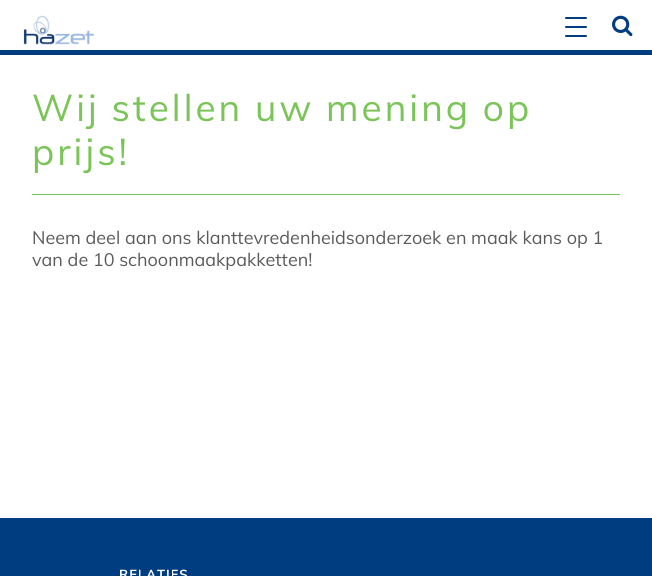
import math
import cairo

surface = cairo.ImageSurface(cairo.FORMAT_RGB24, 652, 576)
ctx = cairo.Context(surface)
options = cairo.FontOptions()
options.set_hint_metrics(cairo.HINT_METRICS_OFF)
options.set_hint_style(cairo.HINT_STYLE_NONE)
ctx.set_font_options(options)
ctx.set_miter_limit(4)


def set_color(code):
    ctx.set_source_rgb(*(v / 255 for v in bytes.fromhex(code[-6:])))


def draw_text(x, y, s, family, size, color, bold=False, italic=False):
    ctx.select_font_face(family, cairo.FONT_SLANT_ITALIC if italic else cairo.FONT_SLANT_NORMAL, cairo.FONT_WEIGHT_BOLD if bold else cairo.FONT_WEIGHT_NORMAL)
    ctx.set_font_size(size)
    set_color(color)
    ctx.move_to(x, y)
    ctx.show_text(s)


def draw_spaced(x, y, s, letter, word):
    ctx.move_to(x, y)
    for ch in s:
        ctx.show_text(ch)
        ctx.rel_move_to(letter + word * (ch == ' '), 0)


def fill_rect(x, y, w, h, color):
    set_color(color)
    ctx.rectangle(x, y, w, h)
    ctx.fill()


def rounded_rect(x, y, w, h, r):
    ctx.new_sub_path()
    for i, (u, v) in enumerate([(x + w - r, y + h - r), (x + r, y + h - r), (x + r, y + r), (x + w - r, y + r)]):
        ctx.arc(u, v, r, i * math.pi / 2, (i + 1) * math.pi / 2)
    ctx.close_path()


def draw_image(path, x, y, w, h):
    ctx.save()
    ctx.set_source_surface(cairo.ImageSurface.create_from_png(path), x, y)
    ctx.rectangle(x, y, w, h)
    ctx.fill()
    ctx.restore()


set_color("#ffffff")
ctx.paint()
fill_rect(0, 50, 652, 5, "#003d80")
draw_image("assets/img1.png", 23, 15, 71, 30)
rounded_rect(565, 17, 22, 2, 1)
ctx.fill()
rounded_rect(565, 26, 22, 2, 1)
ctx.fill()
rounded_rect(565, 35, 22, 2, 1)
ctx.fill()
draw_image("assets/img2.png", 612, 15, 21, 22)
fill_rect(32, 194, 588, 1, "#7ac458")
ctx.select_font_face("Muli")
ctx.set_font_size(37)
draw_spaced(32, 121, "Wij stellen uw mening op", 3, -1)
draw_spaced(32, 165, "prijs!", 3, 0)
draw_text(32, 244, "Neem deel aan ons klanttevredenheidsonderzoek en maak kans op 1", "Muli", 18, "#5b5c5a")
draw_text(32, 266, "van de 10 schoonmaakpakketten!", "Muli", 18, "#5b5c5a")
fill_rect(0, 518, 652, 58, "#003d80")
ctx.select_font_face("Muli", cairo.FONT_SLANT_NORMAL, cairo.FONT_WEIGHT_BOLD)
ctx.set_font_size(13)
set_color("#ffffff")
draw_spaced(119, 579, "RELATIES", 1, 0)
surface.write_to_png("output.png")
